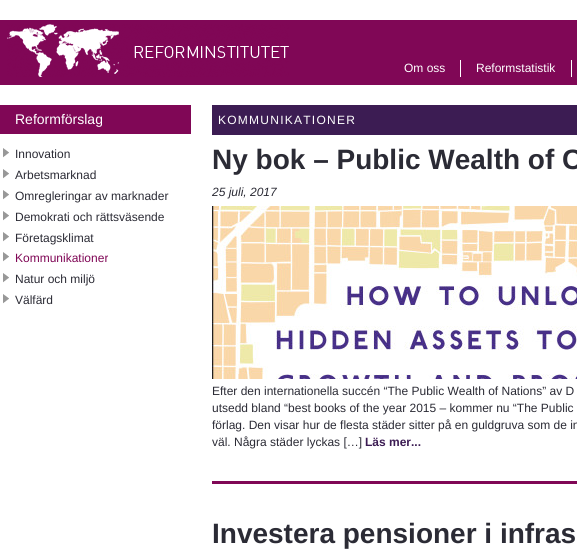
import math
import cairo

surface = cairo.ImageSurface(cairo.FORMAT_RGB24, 577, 556)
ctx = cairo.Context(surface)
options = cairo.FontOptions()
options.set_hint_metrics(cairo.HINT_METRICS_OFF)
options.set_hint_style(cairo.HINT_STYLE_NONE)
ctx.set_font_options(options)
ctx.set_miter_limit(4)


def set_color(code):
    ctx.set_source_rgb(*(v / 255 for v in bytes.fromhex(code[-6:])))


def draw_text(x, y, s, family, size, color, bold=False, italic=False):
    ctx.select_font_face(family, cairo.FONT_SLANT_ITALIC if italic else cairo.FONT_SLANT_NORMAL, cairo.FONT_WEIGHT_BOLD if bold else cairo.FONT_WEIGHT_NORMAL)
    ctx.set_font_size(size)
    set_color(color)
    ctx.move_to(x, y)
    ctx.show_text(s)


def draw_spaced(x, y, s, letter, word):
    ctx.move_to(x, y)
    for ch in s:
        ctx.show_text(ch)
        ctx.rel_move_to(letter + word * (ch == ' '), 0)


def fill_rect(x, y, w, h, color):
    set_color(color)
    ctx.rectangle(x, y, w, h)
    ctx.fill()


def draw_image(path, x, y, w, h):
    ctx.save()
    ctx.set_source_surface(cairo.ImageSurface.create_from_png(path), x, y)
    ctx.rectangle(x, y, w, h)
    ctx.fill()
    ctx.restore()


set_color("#ffffff")
ctx.paint()
fill_rect(0, 20, 577, 65, "#800756")
draw_image("assets/img1.png", 7, 24, 282, 53)
draw_text(404, 72, "Om oss", "Liberation Sans", 12, "#ffffff")
fill_rect(460, 60, 1, 17, "#ffffff")
draw_text(476, 72, "Reformstatistik", "Liberation Sans", 12, "#ffffff")
fill_rect(571, 60, 1, 17, "#ffffff")
fill_rect(0, 105, 191, 29, "#800756")
draw_text(15, 124, "Reformförslag", "Liberation Sans", 14, "#ffffff")
draw_image("assets/img2.png", 3, 148, 6, 10)
draw_text(15, 158, "Innovation", "Liberation Sans", 12, "#2b2b35")
draw_image("assets/img2.png", 3, 169, 6, 10)
draw_text(15, 179, "Arbetsmarknad", "Liberation Sans", 12, "#2b2b35")
draw_image("assets/img2.png", 3, 190, 6, 10)
draw_text(15, 200, "Omregleringar av marknader", "Liberation Sans", 12, "#2b2b35")
draw_image("assets/img2.png", 3, 211, 6, 10)
draw_text(15, 221, "Demokrati och rättsväsende", "Liberation Sans", 12, "#2b2b35")
draw_image("assets/img2.png", 3, 232, 6, 10)
draw_text(15, 242, "Företagsklimat", "Liberation Sans", 12, "#2b2b35")
draw_image("assets/img2.png", 3, 252, 6, 10)
draw_text(15, 262, "Kommunikationer", "Liberation Sans", 12, "#800756")
draw_image("assets/img2.png", 3, 273, 6, 10)
draw_text(15, 283, "Natur och miljö", "Liberation Sans", 12, "#2b2b35")
draw_image("assets/img2.png", 3, 294, 6, 10)
draw_text(15, 304, "Välfärd", "Liberation Sans", 12, "#2b2b35")
fill_rect(212, 105, 365, 30, "#3c1c53")
set_color("#ffffff")
draw_spaced(218, 124, "KOMMUNIKATIONER", 1.25, 0)
fill_rect(212, 481, 365, 3, "#800756")
draw_text(212, 169, "Ny bok – Public Wealth of C", "Liberation Sans", 28, "#2b2b35", bold=True)
draw_text(212, 196, "25 juli, 2017", "Liberation Sans", 12, "#2b2b35", italic=True)
draw_image("assets/img3.png", 212, 206, 365, 173)
draw_text(212, 395, "Efter den internationella succén “The Public Wealth of Nations” av D", "Liberation Sans", 12, "#2b2b35")
draw_text(212, 412, "utsedd bland “best books of the year 2015 – kommer nu “The Public", "Liberation Sans", 12, "#2b2b35")
draw_text(212, 429, "förlag. Den visar hur de flesta städer sitter på en guldgruva som de in", "Liberation Sans", 12, "#2b2b35")
draw_text(212, 446, "väl. Några städer lyckas […]", "Liberation Sans", 12, "#2b2b35")
draw_text(365, 446, "Läs mer...", "Liberation Sans", 12, "#3c1c53", bold=True)
draw_text(212, 543, "Investera pensioner i infras", "Liberation Sans", 28, "#2b2b35", bold=True)
surface.write_to_png("output.png")
